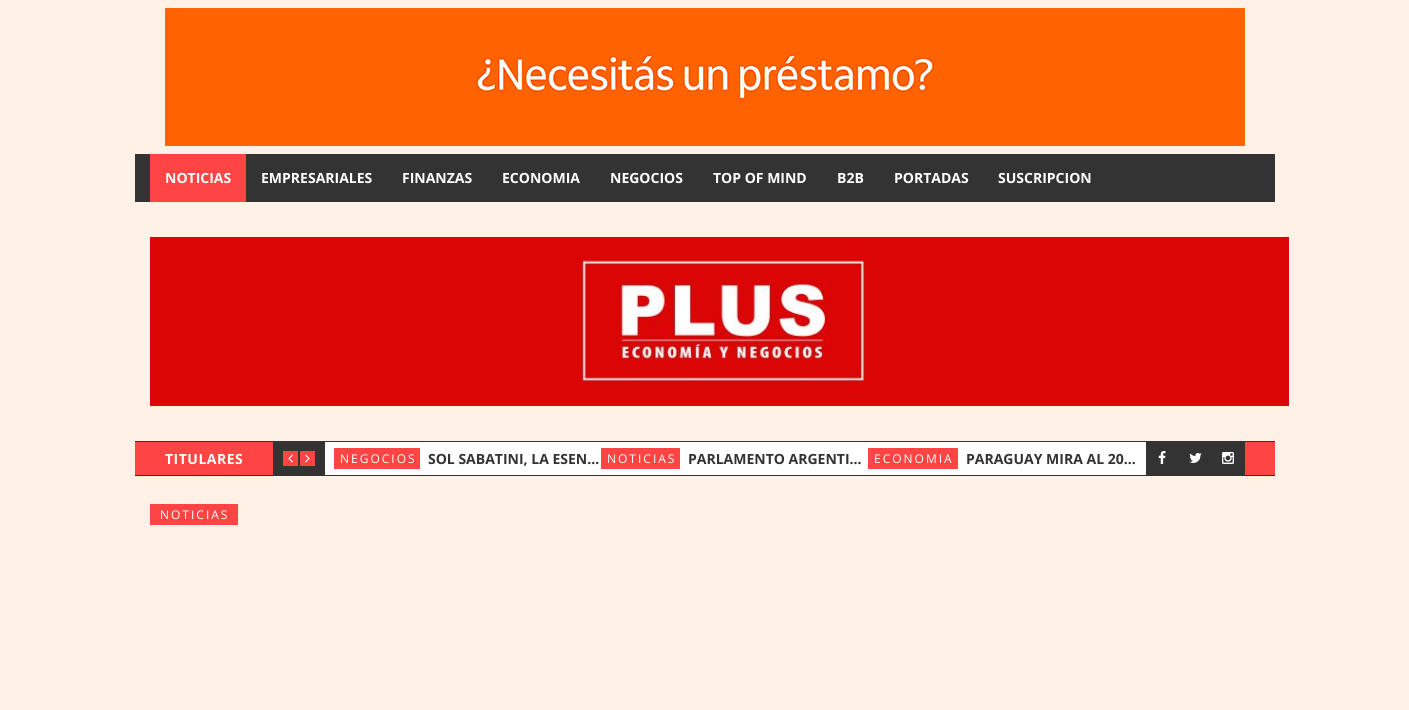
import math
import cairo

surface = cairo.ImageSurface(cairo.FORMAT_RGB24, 1409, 710)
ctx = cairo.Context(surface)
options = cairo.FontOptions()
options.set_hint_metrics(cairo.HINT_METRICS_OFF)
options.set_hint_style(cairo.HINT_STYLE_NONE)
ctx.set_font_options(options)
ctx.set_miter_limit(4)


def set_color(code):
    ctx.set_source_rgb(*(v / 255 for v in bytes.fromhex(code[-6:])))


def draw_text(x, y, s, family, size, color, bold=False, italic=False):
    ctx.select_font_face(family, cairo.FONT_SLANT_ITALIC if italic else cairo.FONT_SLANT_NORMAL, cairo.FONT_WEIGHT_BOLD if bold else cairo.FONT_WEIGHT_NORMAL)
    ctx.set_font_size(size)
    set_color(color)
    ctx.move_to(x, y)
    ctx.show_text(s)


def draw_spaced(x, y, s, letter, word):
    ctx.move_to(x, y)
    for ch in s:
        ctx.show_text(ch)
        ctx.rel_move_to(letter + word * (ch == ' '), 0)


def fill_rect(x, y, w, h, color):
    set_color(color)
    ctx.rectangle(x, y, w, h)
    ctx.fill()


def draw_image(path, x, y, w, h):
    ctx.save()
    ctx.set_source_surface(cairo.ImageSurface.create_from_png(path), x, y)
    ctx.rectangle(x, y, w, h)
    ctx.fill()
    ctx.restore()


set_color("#fff1e5")
ctx.paint()
draw_image("assets/img1.png", 165, 8, 1080, 138)
fill_rect(135, 154, 1140, 48, "#343334")
fill_rect(150, 154, 96, 48, "#ff4444")
draw_text(165, 183, "NOTICIAS", "Open Sans", 14, "#ffffff", bold=True)
draw_text(261, 183, "EMPRESARIALES", "Open Sans", 14, "#ffffff", bold=True)
draw_text(402, 183, "FINANZAS", "Open Sans", 14, "#ffffff", bold=True)
draw_text(502, 183, "ECONOMIA", "Open Sans", 14, "#ffffff", bold=True)
draw_text(610, 183, "NEGOCIOS", "Open Sans", 14, "#ffffff", bold=True)
draw_text(713, 183, "TOP OF MIND", "Open Sans", 14, "#ffffff", bold=True)
draw_text(837, 183, "B2B", "Open Sans", 14, "#ffffff", bold=True)
draw_text(894, 183, "PORTADAS", "Open Sans", 14, "#ffffff", bold=True)
draw_text(998, 183, "SUSCRIPCION", "Open Sans", 14, "#ffffff", bold=True)
draw_image("assets/img2.png", 150, 237, 1139, 169)
fill_rect(135, 441, 1140, 1, "#343334")
fill_rect(135, 475, 1140, 1, "#343334")
fill_rect(325, 442, 821, 33, "#ffffff")
fill_rect(135, 442, 138, 33, "#ff4444")
set_color("#ffffff")
draw_spaced(165, 464, "TITULARES", 0.5, 0)
fill_rect(273, 442, 52, 33, "#343334")
fill_rect(283, 451, 15, 15, "#ff4444")
draw_image("assets/img3.png", 288, 454, 5, 9)
fill_rect(300, 451, 15, 15, "#ff4444")
draw_image("assets/img4.png", 305, 454, 5, 9)
fill_rect(334, 448, 86, 21, "#ff4444")
ctx.select_font_face("Open Sans")
ctx.set_font_size(12)
set_color("#ffffff")
draw_spaced(340, 463, "NEGOCIOS", 2, 0)
draw_text(428, 464, "SOL SABATINI, LA ESEN…", "Open Sans", 14, "#333333", bold=True)
fill_rect(601, 448, 79, 21, "#ff4444")
ctx.select_font_face("Open Sans")
ctx.set_font_size(12)
set_color("#ffffff")
draw_spaced(607, 463, "NOTICIAS", 2, 0)
draw_text(688, 464, "PARLAMENTO ARGENTI…", "Open Sans", 14, "#333333", bold=True)
fill_rect(868, 448, 90, 21, "#ff4444")
ctx.select_font_face("Open Sans")
ctx.set_font_size(12)
set_color("#ffffff")
draw_spaced(874, 463, "ECONOMIA", 2, 0)
draw_text(966, 464, "PARAGUAY MIRA AL 20…", "Open Sans", 14, "#333333", bold=True)
fill_rect(1245, 442, 30, 33, "#ff4444")
fill_rect(1146, 442, 99, 33, "#343334")
draw_image("assets/img5.png", 1158, 451, 8, 13)
draw_image("assets/img6.png", 1189, 453, 13, 10)
draw_image("assets/img7.png", 1222, 452, 12, 12)
fill_rect(150, 504, 88, 21, "#ff4444")
ctx.select_font_face("Open Sans")
ctx.set_font_size(12)
set_color("#ffffff")
draw_spaced(160, 519, "NOTICIAS", 2, 0)
surface.write_to_png("output.png")
